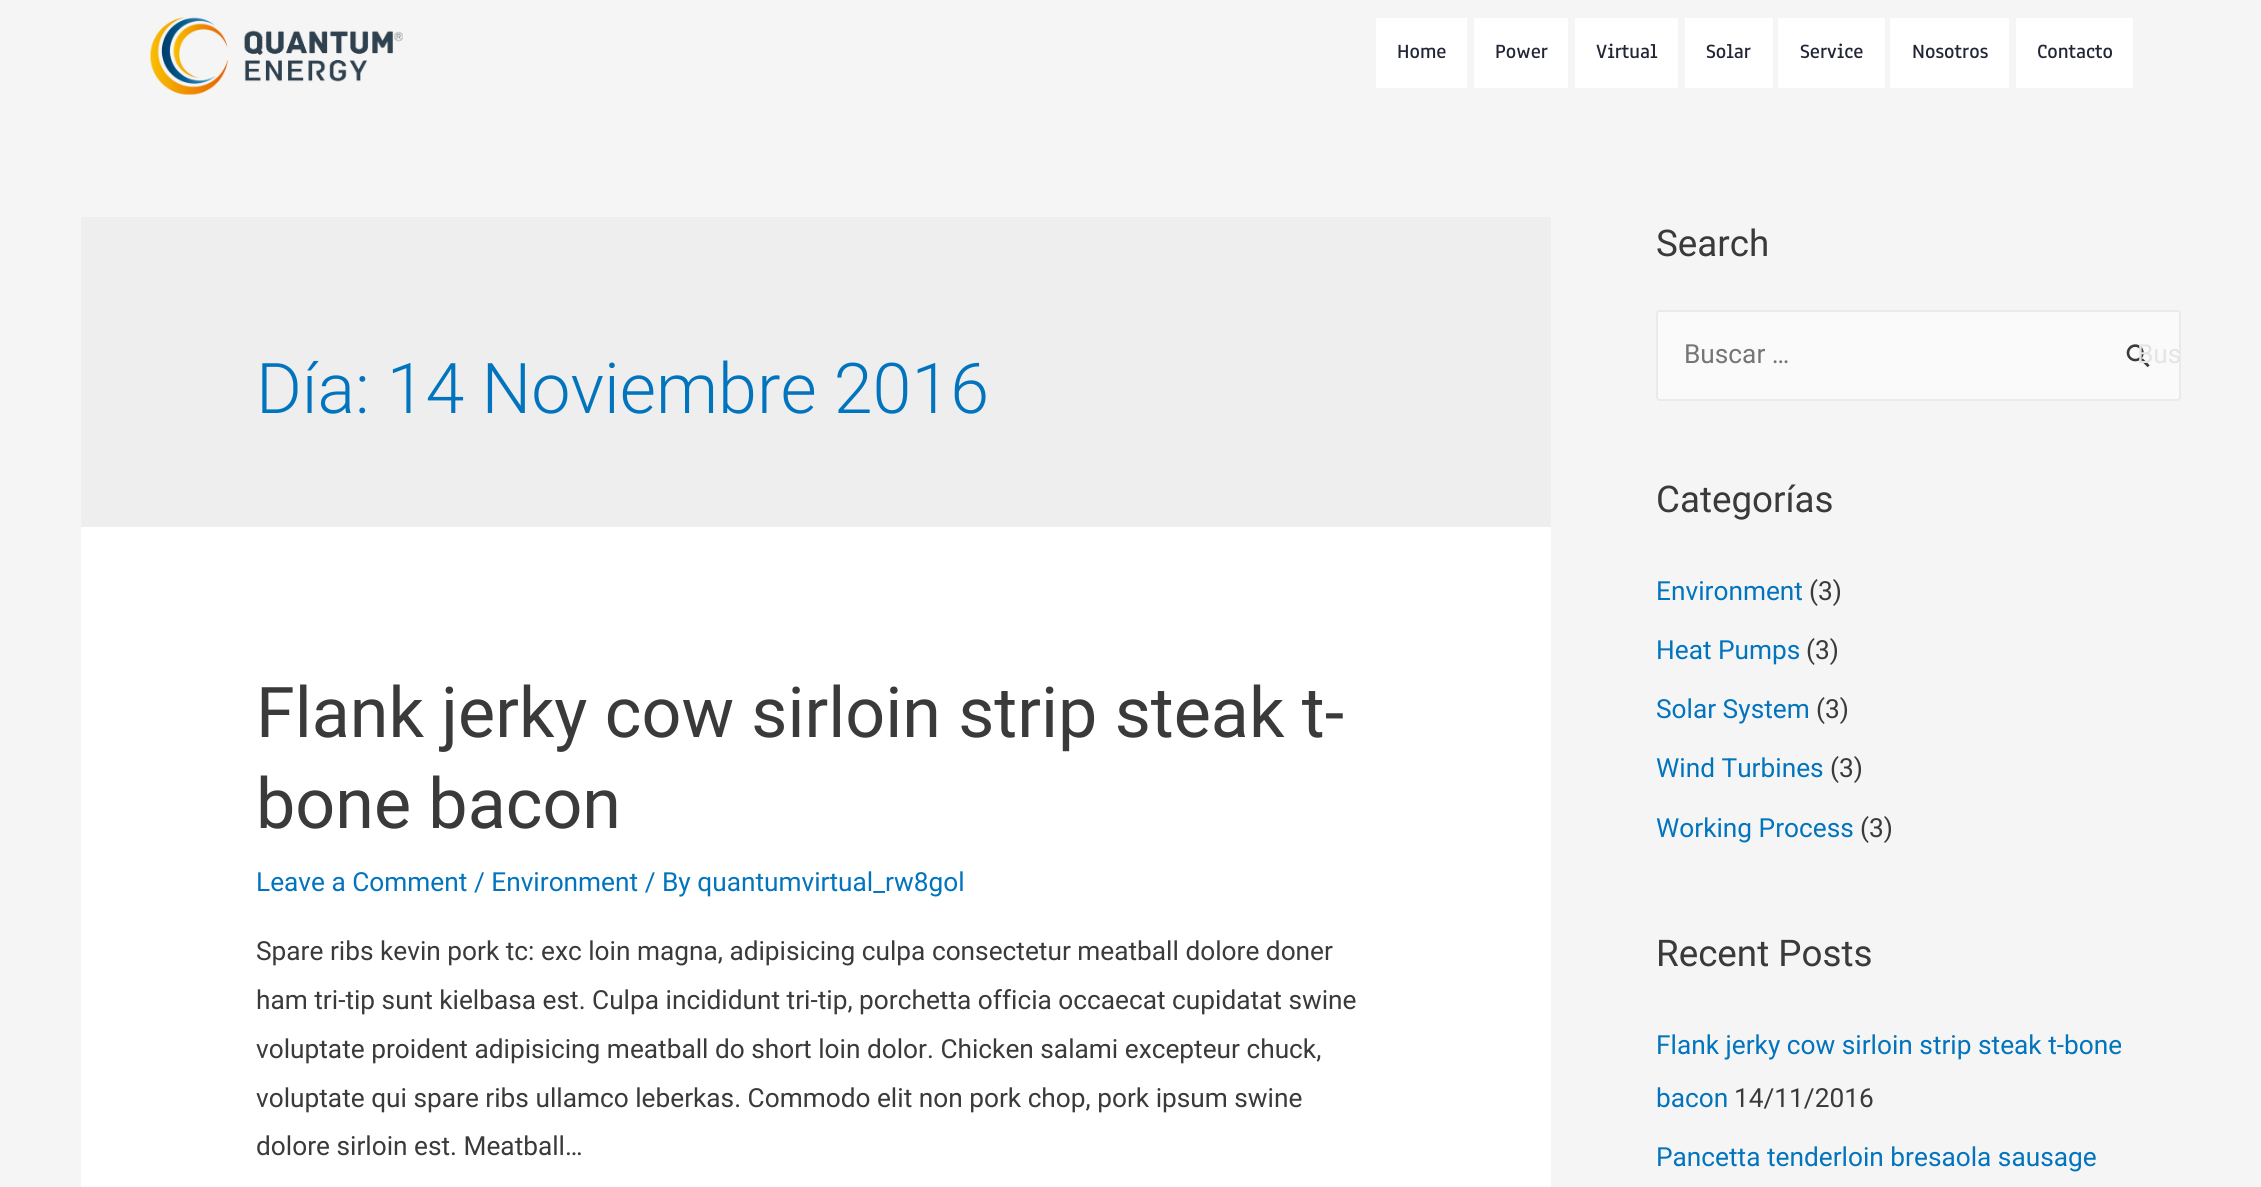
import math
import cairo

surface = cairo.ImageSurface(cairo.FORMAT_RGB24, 2261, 1187)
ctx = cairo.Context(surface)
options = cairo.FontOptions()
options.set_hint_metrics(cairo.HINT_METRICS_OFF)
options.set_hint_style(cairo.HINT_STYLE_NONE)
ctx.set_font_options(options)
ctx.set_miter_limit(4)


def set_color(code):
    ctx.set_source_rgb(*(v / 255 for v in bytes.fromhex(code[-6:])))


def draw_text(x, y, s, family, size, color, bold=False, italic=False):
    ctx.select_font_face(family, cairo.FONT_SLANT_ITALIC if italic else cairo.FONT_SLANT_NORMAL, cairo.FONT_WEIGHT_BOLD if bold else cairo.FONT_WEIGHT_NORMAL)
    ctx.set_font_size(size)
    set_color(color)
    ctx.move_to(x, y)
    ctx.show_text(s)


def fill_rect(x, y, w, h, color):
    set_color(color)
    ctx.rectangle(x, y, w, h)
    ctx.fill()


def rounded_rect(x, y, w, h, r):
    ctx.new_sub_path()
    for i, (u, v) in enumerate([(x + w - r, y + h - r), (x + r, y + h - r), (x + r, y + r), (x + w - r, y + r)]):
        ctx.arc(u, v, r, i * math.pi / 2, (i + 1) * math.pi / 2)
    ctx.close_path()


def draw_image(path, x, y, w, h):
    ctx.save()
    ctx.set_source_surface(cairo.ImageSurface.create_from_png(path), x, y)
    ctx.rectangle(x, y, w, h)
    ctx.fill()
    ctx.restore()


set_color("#f5f5f5")
ctx.paint()
draw_image("assets/img1.png", 150, 17, 253, 78)
fill_rect(1376, 18, 91, 70, "#ffffff")
draw_text(1397, 58, "Home", "Anaheim SemiBold", 21, "#222536")
fill_rect(1474, 18, 94, 70, "#ffffff")
draw_text(1495, 58, "Power", "Anaheim SemiBold", 21, "#222536")
fill_rect(1575, 18, 103, 70, "#ffffff")
draw_text(1596, 58, "Virtual", "Anaheim SemiBold", 21, "#222536")
fill_rect(1685, 18, 88, 70, "#ffffff")
draw_text(1706, 58, "Solar", "Anaheim SemiBold", 21, "#222536")
fill_rect(1778, 18, 107, 70, "#ffffff")
draw_text(1800, 58, "Service", "Anaheim SemiBold", 21, "#222536")
fill_rect(1890, 18, 119, 70, "#ffffff")
draw_text(1912, 58, "Nosotros", "Anaheim SemiBold", 21, "#222536")
fill_rect(2016, 18, 117, 70, "#ffffff")
draw_text(2037, 58, "Contacto", "Anaheim SemiBold", 21, "#222536")
fill_rect(81, 217, 1470, 310, "#eeeeee")
draw_text(256, 413, "Día: 14 Noviembre 2016", "Roboto Light", 70, "#0274be")
fill_rect(81, 527, 1470, 660, "#ffffff")
draw_text(256, 737, "Flank jerky cow sirloin strip steak t-", "Roboto", 70, "#3a3a3a")
draw_text(256, 828, "bone bacon", "Roboto", 70, "#3a3a3a")
draw_text(256, 891, "Leave a Comment / Environment / By quantumvirtual_rw8gol", "Roboto", 26.25, "#0274be")
draw_text(256, 960, "Spare ribs kevin pork tc: exc loin magna, adipisicing culpa consectetur meatball dolore doner", "Roboto", 26.25, "#3a3a3a")
draw_text(256, 1009, "ham tri-tip sunt kielbasa est. Culpa incididunt tri-tip, porchetta officia occaecat cupidatat swine", "Roboto", 26.25, "#3a3a3a")
draw_text(256, 1058, "voluptate proident adipisicing meatball do short loin dolor. Chicken salami excepteur chuck,", "Roboto", 26.25, "#3a3a3a")
draw_text(256, 1107, "voluptate qui spare ribs ullamco leberkas. Commodo elit non pork chop, pork ipsum swine", "Roboto", 26.25, "#3a3a3a")
draw_text(256, 1155, "dolore sirloin est. Meatball…", "Roboto", 26.25, "#3a3a3a")
draw_text(1656, 256, "Search", "Roboto", 36.75, "#3a3a3a")
set_color("#fafafa")
rounded_rect(1657, 311, 523, 89, 3)
ctx.fill_preserve()
set_color("#eaeaea")
ctx.stroke()
draw_text(1684, 363, "Buscar …", "Roboto", 26.25, "#757575")
draw_image("assets/img2.png", 2126, 344, 24, 24)
draw_text(2137, 363, "Bus", "Roboto", 26.25, "#e4e4e4")
draw_text(1656, 512, "Categorías", "Roboto", 36.75, "#3a3a3a")
draw_text(1656, 600, "Environment", "Roboto", 26.25, "#0274be")
draw_text(1809, 600, "(3)", "Roboto", 26.25, "#3a3a3a")
draw_text(1656, 659, "Heat Pumps", "Roboto", 26.25, "#0274be")
draw_text(1806, 659, "(3)", "Roboto", 26.25, "#3a3a3a")
draw_text(1656, 718, "Solar System", "Roboto", 26.25, "#0274be")
draw_text(1816, 718, "(3)", "Roboto", 26.25, "#3a3a3a")
draw_text(1656, 777, "Wind Turbines", "Roboto", 26.25, "#0274be")
draw_text(1830, 777, "(3)", "Roboto", 26.25, "#3a3a3a")
draw_text(1656, 837, "Working Process", "Roboto", 26.25, "#0274be")
draw_text(1860, 837, "(3)", "Roboto", 26.25, "#3a3a3a")
draw_text(1656, 966, "Recent Posts", "Roboto", 36.75, "#3a3a3a")
draw_text(1656, 1054, "Flank jerky cow sirloin strip steak t-bone", "Roboto", 26.25, "#0274be")
draw_text(1656, 1107, "bacon", "Roboto", 26.25, "#0274be")
draw_text(1734, 1107, "14/11/2016", "Roboto", 26.25, "#3a3a3a")
draw_text(1656, 1166, "Pancetta tenderloin bresaola sausage", "Roboto", 26.25, "#0274be")
surface.write_to_png("output.png")
